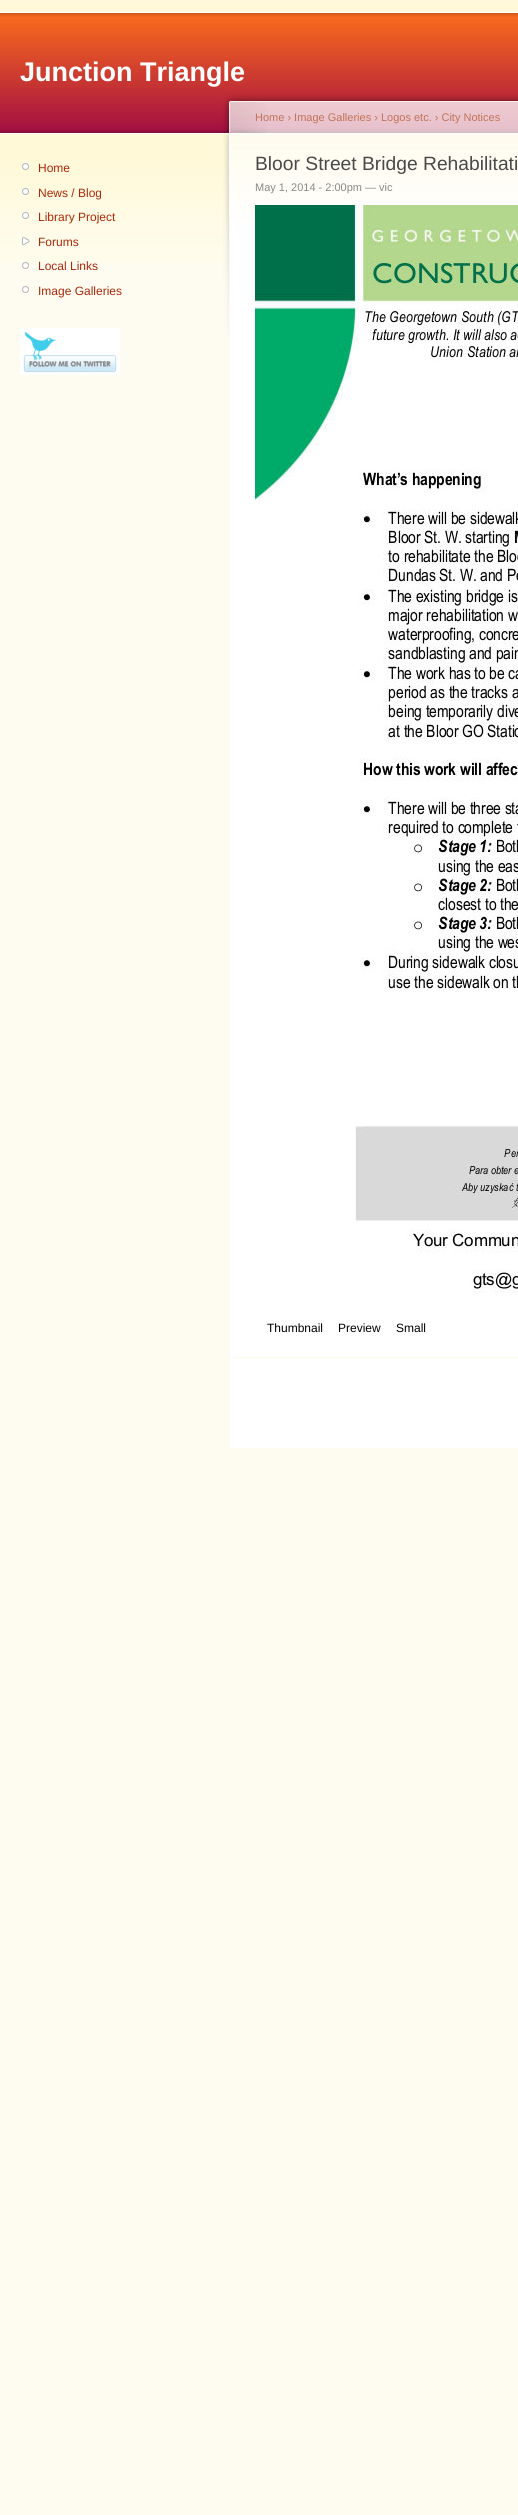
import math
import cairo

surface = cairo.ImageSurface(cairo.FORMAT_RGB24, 518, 2515)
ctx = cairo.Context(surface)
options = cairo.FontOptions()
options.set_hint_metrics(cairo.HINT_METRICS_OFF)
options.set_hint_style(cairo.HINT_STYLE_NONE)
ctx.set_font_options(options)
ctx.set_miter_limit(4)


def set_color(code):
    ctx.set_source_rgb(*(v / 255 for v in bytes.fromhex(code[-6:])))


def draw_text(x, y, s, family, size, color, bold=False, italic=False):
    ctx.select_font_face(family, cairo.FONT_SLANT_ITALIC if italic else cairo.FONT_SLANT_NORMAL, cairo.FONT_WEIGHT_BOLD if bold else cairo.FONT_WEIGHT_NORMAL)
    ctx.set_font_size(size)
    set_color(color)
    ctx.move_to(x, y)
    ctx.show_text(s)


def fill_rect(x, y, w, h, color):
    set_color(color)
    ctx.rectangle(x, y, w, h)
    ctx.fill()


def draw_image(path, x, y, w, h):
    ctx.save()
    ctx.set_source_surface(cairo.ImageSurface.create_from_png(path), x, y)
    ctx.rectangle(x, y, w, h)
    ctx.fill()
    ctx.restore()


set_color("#fefcf1")
ctx.paint()
fill_rect(0, 0, 518, 1, "#fffadd")
fill_rect(0, 1, 518, 11, "#fff9d8")
draw_image("assets/img1.png", 0, 12, 518, 251)
draw_text(20, 81, "Junction Triangle", "Liberation Sans", 27, "#ffffff", bold=True)
draw_image("assets/img2.png", 22, 163, 7, 7)
draw_text(38, 172, "Home", "Liberation Sans", 12, "#a9290a")
draw_image("assets/img3.png", 22, 188, 7, 7)
draw_text(38, 197, "News / Blog", "Liberation Sans", 12, "#a9290a")
draw_image("assets/img4.png", 22, 212, 7, 7)
draw_text(38, 221, "Library Project", "Liberation Sans", 12, "#a9290a")
draw_image("assets/img5.png", 22, 236, 8, 10)
draw_text(38, 246, "Forums", "Liberation Sans", 12, "#a9290a")
draw_image("assets/img6.png", 22, 262, 7, 7)
draw_text(38, 270, "Local Links", "Liberation Sans", 12, "#a9290a")
draw_image("assets/img7.png", 22, 286, 7, 7)
draw_text(38, 295, "Image Galleries", "Liberation Sans", 12, "#a9290a")
draw_image("assets/img8.png", 20, 328, 100, 47)
fill_rect(230, 204, 288, 1244, "#ffffff")
draw_image("assets/img9.png", 230, 92, 288, 112)
draw_image("assets/img10.png", 223, 96, 44, 241)
draw_text(255, 121, "Home › Image Galleries › Logos etc. › City Notices", "Liberation Sans", 11, "#c17357")
draw_text(255, 170, "Bloor Street Bridge Rehabilitati", "Liberation Sans", 19.25, "#494949")
fill_rect(229, 1357, 289, 1, "#fcfaec")
draw_text(255, 191, "May 1, 2014 - 2:00pm — vic", "Liberation Sans", 11, "#898989")
draw_image("assets/img11.png", 255, 205, 263, 1088)
draw_text(267, 1332, "Thumbnail", "Liberation Sans", 12, "#000000")
draw_text(338, 1332, "Preview", "Liberation Sans", 12, "#000000")
draw_text(396, 1332, "Small", "Liberation Sans", 12, "#000000")
surface.write_to_png("output.png")
